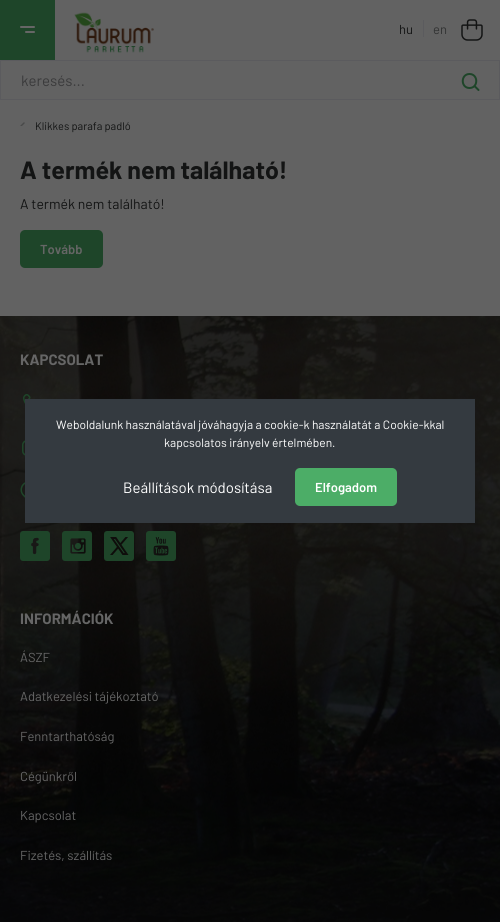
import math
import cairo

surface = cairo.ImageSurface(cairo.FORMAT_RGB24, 500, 922)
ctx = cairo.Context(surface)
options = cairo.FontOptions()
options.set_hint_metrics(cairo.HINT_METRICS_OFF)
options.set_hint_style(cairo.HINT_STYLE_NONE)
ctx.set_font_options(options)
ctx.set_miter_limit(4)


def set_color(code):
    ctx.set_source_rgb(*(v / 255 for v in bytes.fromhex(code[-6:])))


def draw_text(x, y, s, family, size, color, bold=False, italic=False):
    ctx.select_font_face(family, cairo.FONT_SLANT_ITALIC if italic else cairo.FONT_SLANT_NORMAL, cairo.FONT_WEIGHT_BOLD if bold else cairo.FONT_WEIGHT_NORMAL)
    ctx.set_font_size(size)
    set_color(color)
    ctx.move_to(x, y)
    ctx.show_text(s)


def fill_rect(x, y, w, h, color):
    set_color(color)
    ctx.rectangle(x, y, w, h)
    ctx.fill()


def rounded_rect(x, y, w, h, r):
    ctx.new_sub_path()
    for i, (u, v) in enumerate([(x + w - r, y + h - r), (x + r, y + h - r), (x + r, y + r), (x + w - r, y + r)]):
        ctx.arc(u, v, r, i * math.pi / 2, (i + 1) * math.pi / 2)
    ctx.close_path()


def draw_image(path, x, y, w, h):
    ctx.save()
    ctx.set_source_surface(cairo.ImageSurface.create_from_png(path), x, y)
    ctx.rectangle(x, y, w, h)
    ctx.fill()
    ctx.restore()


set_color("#626262")
ctx.paint()
fill_rect(0, 0, 55, 60, "#1e4529")
set_color("#666666")
rounded_rect(20, 26, 15, 2, 1)
ctx.fill()
rounded_rect(25, 31, 10, 2, 1)
ctx.fill()
draw_image("assets/img1.png", 74, 12, 80, 41)
draw_text(399, 34, "hu", "Barlow", 13, "#131414")
fill_rect(423, 20, 1, 17, "#5b5b5e")
draw_text(433, 34, "en", "Barlow", 13, "#323333")
draw_image("assets/img2.png", 461, 19, 22, 22)
ctx.rectangle(0.5, 60.5, 499, 39)
set_color("#5b5b5e")
ctx.set_line_width(1)
ctx.stroke()
draw_text(21, 86, "keresés...", "Barlow", 15, "#3a3a3b")
ctx.new_path()
ctx.move_to(478.5, 90)
ctx.line_to(474.5, 86)
ctx.move_to(469.5, 88)
ctx.curve_to(460.5, 88, 460.5, 74, 469.5, 74)
ctx.curve_to(478.5, 74, 478.5, 88, 469.5, 88)
ctx.close_path()
set_color("#1e4529")
ctx.set_line_width(2)
ctx.set_line_cap(cairo.LINE_CAP_ROUND)
ctx.set_line_join(cairo.LINE_JOIN_ROUND)
ctx.stroke()
draw_image("assets/img3.png", 20, 122, 5, 4)
draw_text(35, 130, "Klikkes parafa padló", "Barlow", 11, "#131414")
draw_text(20, 179, "A termék nem található!", "Barlow", 25, "#131414", bold=True)
draw_text(20, 209, "A termék nem található!", "Barlow", 14, "#131414")
set_color("#1e4529")
rounded_rect(20, 230, 83, 38, 5)
ctx.fill()
draw_text(40, 254, "Tovább", "Barlow SemiBold", 13, "#666666")
draw_image("assets/img4.png", 0, 316, 500, 606)
draw_text(20, 365, "KAPCSOLAT", "Barlow", 15, "#666666", bold=True)
draw_image("assets/img5.png", 23, 394, 8, 10)
rounded_rect(22.75, 440.75, 18.5, 14.5, 4.25)
set_color("#1e4529")
ctx.set_line_width(1.5)
ctx.set_line_cap(cairo.LINE_CAP_BUTT)
ctx.set_line_join(cairo.LINE_JOIN_MITER)
ctx.stroke()
draw_image("assets/img6.png", 20, 482, 5, 16)
draw_image("assets/img7.png", 20, 531, 30, 30)
draw_image("assets/img8.png", 62, 531, 30, 30)
draw_image("assets/img9.png", 104, 531, 30, 30)
draw_image("assets/img10.png", 146, 531, 30, 30)
draw_text(20, 624, "INFORMÁCIÓK", "Barlow", 15, "#666666", bold=True)
draw_text(20, 662, "ÁSZF", "Barlow", 13, "#666666")
draw_text(20, 701, "Adatkezelési tájékoztató", "Barlow", 13, "#666666")
draw_text(20, 741, "Fenntarthatóság", "Barlow", 13, "#666666")
draw_text(20, 781, "Cégünkről", "Barlow", 13, "#666666")
draw_text(20, 820, "Kapcsolat", "Barlow", 13, "#666666")
draw_text(20, 860, "Fizetés, szállítás", "Barlow", 13, "#666666")
fill_rect(25, 399, 450, 124, "#343a40")
draw_text(56, 429, "Weboldalunk használatával jóváhagyja a cookie-k használatát a Cookie-kkal", "Barlow", 12, "#ffffff")
draw_text(164, 447, "kapcsolatos irányelv értelmében.", "Barlow", 12, "#ffffff")
draw_text(123, 493, "Beállítások módosítása", "Barlow", 15, "#ffffff")
set_color("#4cad67")
rounded_rect(295, 468, 102, 38, 5)
ctx.fill()
draw_text(315, 492, "Elfogadom", "Barlow SemiBold", 13, "#ffffff")
surface.write_to_png("output.png")
